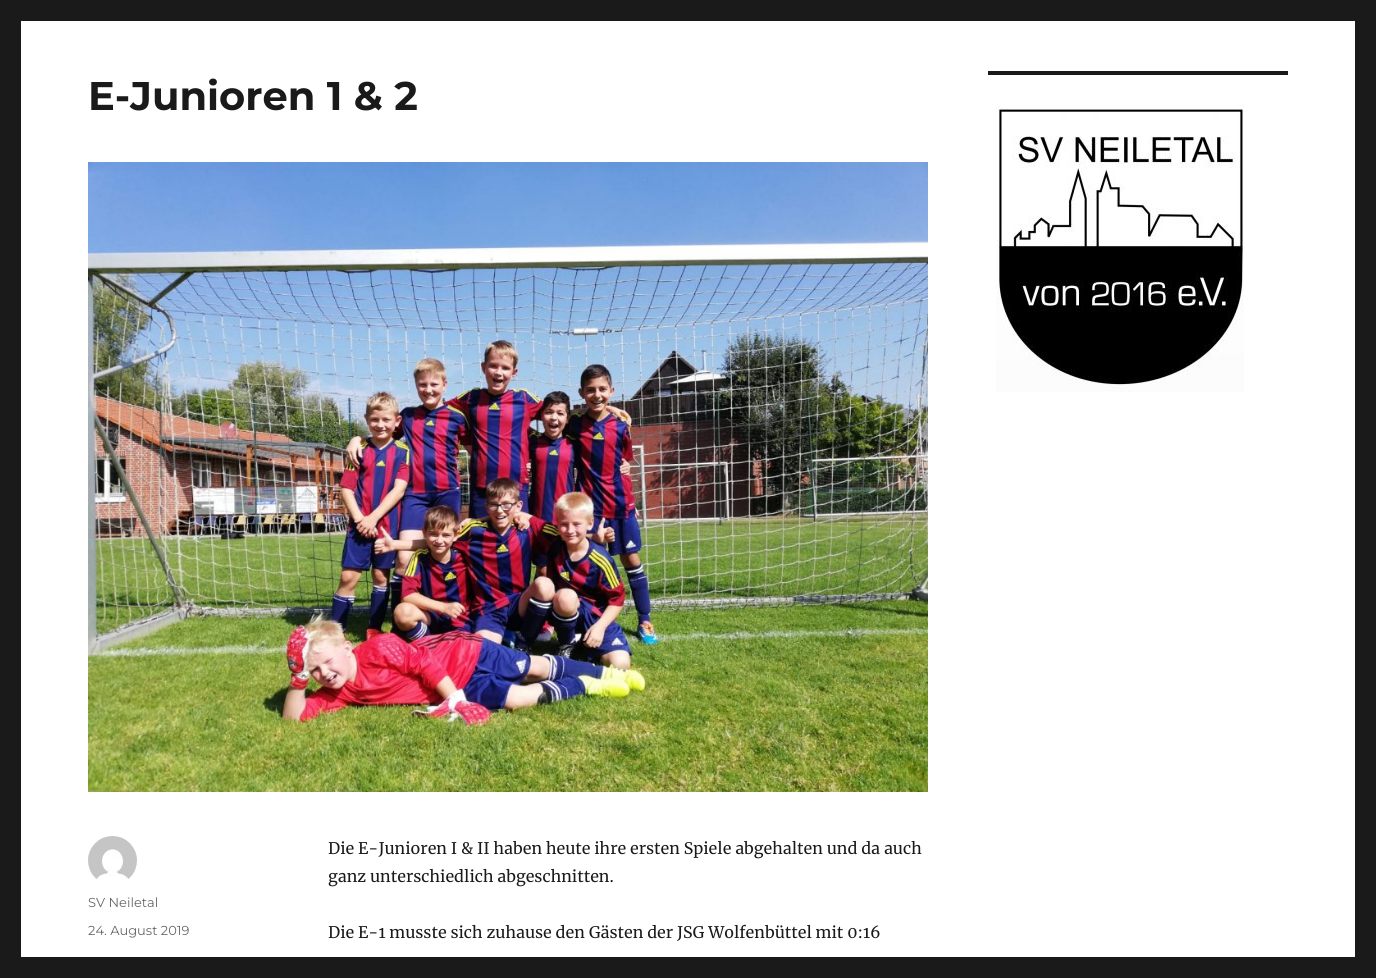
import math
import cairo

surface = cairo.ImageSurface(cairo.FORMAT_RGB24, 1376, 978)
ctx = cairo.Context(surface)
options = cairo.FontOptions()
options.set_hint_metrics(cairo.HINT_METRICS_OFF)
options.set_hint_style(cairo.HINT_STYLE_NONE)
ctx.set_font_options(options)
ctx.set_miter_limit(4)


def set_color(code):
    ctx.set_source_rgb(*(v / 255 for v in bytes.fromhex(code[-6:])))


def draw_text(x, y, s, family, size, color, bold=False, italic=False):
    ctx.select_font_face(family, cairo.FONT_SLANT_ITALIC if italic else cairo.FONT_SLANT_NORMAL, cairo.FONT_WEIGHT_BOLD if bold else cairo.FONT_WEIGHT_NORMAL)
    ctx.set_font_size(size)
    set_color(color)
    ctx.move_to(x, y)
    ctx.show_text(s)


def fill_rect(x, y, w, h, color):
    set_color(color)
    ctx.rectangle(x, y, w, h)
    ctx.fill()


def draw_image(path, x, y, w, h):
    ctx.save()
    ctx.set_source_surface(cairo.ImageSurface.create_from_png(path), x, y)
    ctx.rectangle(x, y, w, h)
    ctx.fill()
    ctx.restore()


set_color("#1a1a1a")
ctx.paint()
fill_rect(21, 21, 1334, 936, "#ffffff")
draw_text(88, 110, "E-Junioren 1 & 2", "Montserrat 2 Thin", 40, "#1a1a1a")
draw_image("assets/img1.png", 88, 162, 840, 630)
draw_image("assets/img2.png", 88, 836, 49, 45)
draw_text(88, 907, "SV Neiletal", "Montserrat Thin", 13, "#686868")
draw_text(88, 935, "24. August 2019", "Montserrat Thin", 13, "#686868")
draw_text(328, 854, "Die E-Junioren I & II haben heute ihre ersten Spiele abgehalten und da auch", "Merriweather", 16, "#1a1a1a")
draw_text(328, 882, "ganz unterschiedlich abgeschnitten.", "Merriweather", 16, "#1a1a1a")
draw_text(328, 938, "Die E-1 musste sich zuhause den Gästen der JSG Wolfenbüttel mit 0:16", "Merriweather", 16, "#1a1a1a")
fill_rect(988, 71, 300, 4, "#1a1a1a")
draw_image("assets/img3.png", 996, 104, 248, 288)
surface.write_to_png("output.png")
